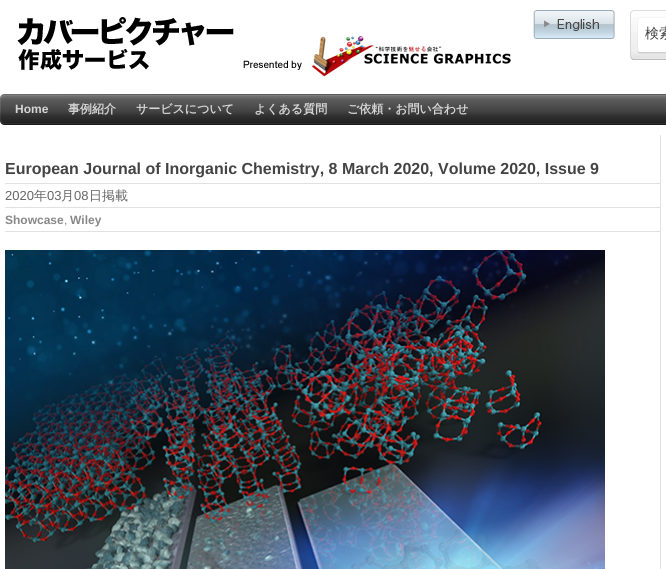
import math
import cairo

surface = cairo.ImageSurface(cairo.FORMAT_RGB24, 666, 569)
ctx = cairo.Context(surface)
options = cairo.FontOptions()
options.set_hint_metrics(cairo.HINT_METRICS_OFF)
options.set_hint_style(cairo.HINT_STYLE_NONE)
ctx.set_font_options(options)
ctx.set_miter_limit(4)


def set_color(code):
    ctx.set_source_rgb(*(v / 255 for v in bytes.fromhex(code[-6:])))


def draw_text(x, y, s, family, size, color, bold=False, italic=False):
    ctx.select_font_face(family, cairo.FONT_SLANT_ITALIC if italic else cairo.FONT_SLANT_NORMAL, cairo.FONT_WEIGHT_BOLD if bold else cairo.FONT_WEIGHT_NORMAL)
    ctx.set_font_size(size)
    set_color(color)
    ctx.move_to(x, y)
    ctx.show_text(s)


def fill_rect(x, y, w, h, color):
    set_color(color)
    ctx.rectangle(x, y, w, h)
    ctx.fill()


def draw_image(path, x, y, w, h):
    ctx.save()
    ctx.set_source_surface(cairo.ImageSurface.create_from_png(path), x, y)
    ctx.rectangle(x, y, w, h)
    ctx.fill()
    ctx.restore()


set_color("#ffffff")
ctx.paint()
draw_image("assets/img1.png", 17, 17, 494, 60)
draw_image("assets/img2.png", 533, 10, 82, 29)
draw_image("assets/img3.png", 630, 10, 36, 50)
draw_text(645, 38, "検索", "WenQuanYi Zen Hei Medium", 14, "#444444")
draw_image("assets/img4.png", 0, 94, 666, 31)
draw_text(15, 113, "Home", "Liberation Sans", 12, "#d5d5d5", bold=True)
draw_text(68, 113, "事例紹介", "WenQuanYi Zen Hei", 12, "#d5d5d5", bold=True)
draw_text(136, 113, "サービスについて", "WenQuanYi Zen Hei", 12, "#d5d5d5", bold=True)
draw_text(254, 113, "よくある質問", "WenQuanYi Zen Hei", 12, "#d5d5d5", bold=True)
draw_text(347, 113, "ご依頼・お問い合わせ", "WenQuanYi Zen Hei", 12, "#d5d5d5", bold=True)
fill_rect(660, 135, 1, 434, "#e1e1e1")
fill_rect(5, 183, 655, 1, "#e1e1e1")
draw_text(5, 174, "European Journal of Inorganic Chemistry, 8 March 2020, Volume 2020, Issue 9", "Liberation Sans", 16, "#444444", bold=True)
fill_rect(5, 207, 655, 1, "#e1e1e1")
draw_text(5, 200, "2020", "Liberation Sans", 13, "#666666")
draw_text(34, 200, "年", "WenQuanYi Zen Hei Medium", 13, "#666666")
draw_text(47, 200, "03", "Liberation Sans", 13, "#666666")
draw_text(61, 200, "月", "WenQuanYi Zen Hei Medium", 13, "#666666")
draw_text(74, 200, "08", "Liberation Sans", 13, "#666666")
draw_text(89, 200, "日掲載", "WenQuanYi Zen Hei Medium", 13, "#666666")
fill_rect(5, 231, 655, 1, "#e1e1e1")
draw_text(5, 224, "Showcase", "Liberation Sans", 12, "#888888", bold=True)
draw_text(64, 224, ",", "Liberation Sans", 12, "#888888")
draw_text(70, 224, "Wiley", "Liberation Sans", 12, "#888888", bold=True)
draw_image("assets/img5.png", 5, 250, 600, 319)
surface.write_to_png("output.png")
